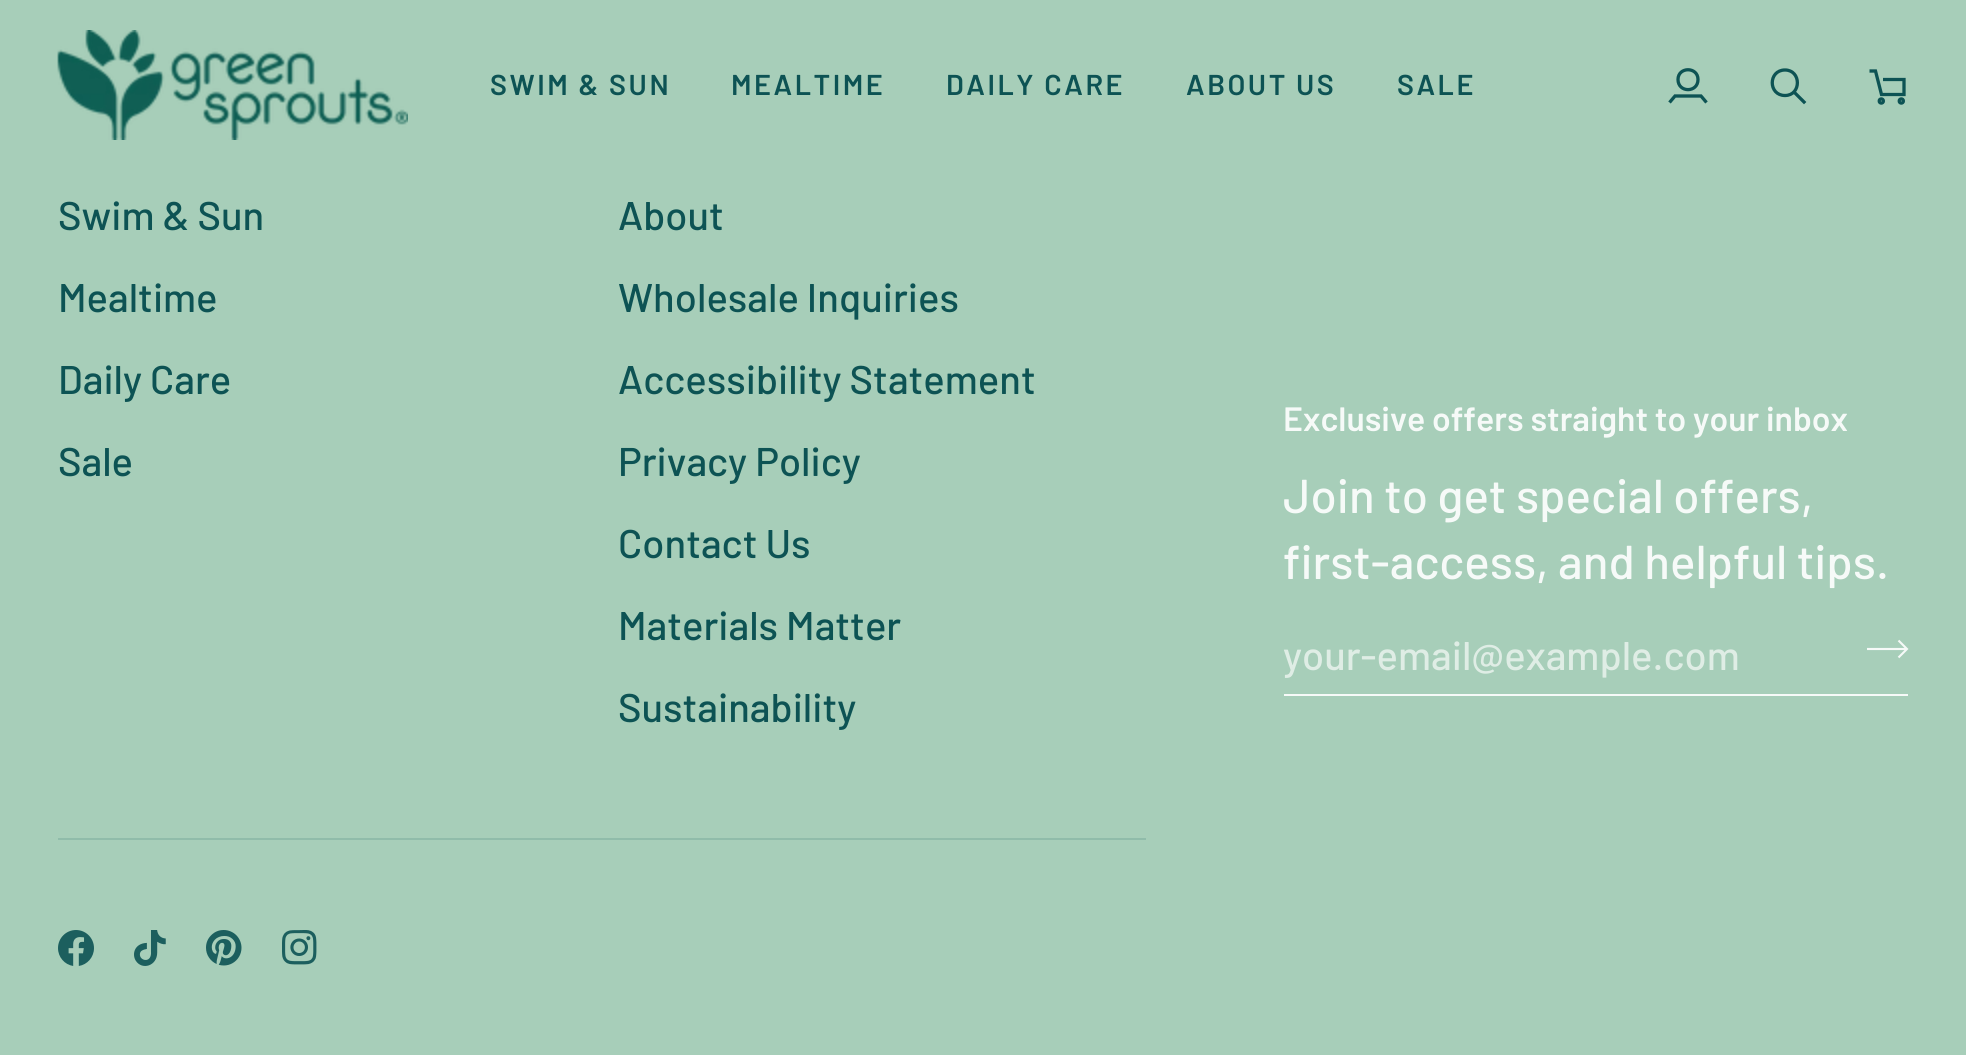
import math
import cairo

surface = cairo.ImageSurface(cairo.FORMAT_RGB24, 1966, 1055)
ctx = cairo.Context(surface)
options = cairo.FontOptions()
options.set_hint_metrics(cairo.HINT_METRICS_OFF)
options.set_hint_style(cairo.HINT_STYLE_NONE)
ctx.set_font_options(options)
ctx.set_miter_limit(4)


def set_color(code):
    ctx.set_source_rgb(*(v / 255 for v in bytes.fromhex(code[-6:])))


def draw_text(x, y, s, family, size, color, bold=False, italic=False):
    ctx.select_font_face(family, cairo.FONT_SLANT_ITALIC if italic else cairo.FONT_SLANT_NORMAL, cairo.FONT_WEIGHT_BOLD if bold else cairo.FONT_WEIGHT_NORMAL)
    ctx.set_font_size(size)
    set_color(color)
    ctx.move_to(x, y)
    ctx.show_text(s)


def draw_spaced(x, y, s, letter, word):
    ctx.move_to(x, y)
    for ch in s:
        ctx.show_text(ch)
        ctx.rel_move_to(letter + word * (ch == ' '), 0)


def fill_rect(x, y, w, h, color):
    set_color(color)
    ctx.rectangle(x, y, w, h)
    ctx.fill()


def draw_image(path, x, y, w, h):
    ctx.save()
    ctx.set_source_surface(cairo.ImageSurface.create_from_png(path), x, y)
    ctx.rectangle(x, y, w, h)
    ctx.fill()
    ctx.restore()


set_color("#a7ceb9")
ctx.paint()
draw_image("assets/img1.png", 57, 30, 351, 110)
ctx.select_font_face("Barlow SemiBold")
ctx.set_font_size(28.75)
set_color("#0d5354")
draw_spaced(490, 95, "SWIM & SUN", 2.5, 0)
draw_spaced(731, 95, "MEALTIME", 2.5, 0)
draw_spaced(946, 95, "DAILY CARE", 2.5, 0)
draw_spaced(1186, 95, "ABOUT US", 2.5, 0)
draw_spaced(1397, 95, "SALE", 2.5, 0)
ctx.new_path()
ctx.move_to(1669.5, 102.5)
ctx.line_to(1675, 96)
ctx.line_to(1701, 96)
ctx.line_to(1706.5, 102.5)
ctx.move_to(1698, 79.5)
ctx.curve_to(1698, 93, 1678, 93, 1678, 79.5)
ctx.curve_to(1678, 66.5, 1698, 66.5, 1698, 79.5)
ctx.close_path()
ctx.set_line_width(3.3)
ctx.stroke()
ctx.new_path()
ctx.move_to(1785, 95.5)
ctx.curve_to(1801.5, 95.5, 1801.5, 70, 1785, 70)
ctx.curve_to(1768, 70, 1768, 95.5, 1785, 95.5)
ctx.close_path()
ctx.move_to(1804, 102)
ctx.line_to(1794.5, 92.5)
ctx.set_line_cap(cairo.LINE_CAP_SQUARE)
ctx.stroke()
ctx.new_path()
ctx.move_to(1869.5, 71)
ctx.line_to(1875.5, 71)
ctx.line_to(1881.5, 94.5)
ctx.line_to(1904, 94.5)
ctx.line_to(1904, 79.5)
ctx.line_to(1883, 79.5)
ctx.set_line_cap(cairo.LINE_CAP_BUTT)
ctx.stroke()
ctx.arc(1881.3, 101, 2.1, 0, 2 * math.pi)
ctx.stroke()
ctx.arc(1901.3, 101, 2.1, 0, 2 * math.pi)
ctx.stroke()
draw_text(58, 230, "Swim & Sun", "Barlow Medium", 40, "#0d5354")
draw_text(58, 312, "Mealtime", "Barlow Medium", 40, "#0d5354")
draw_text(58, 394, "Daily Care", "Barlow Medium", 40, "#0d5354")
draw_text(58, 476, "Sale", "Barlow Medium", 40, "#0d5354")
draw_text(618, 230, "About", "Barlow Medium", 40, "#0d5354")
draw_text(618, 312, "Wholesale Inquiries", "Barlow Medium", 40, "#0d5354")
draw_text(618, 394, "Accessibility Statement", "Barlow Medium", 40, "#0d5354")
draw_text(618, 476, "Privacy Policy", "Barlow Medium", 40, "#0d5354")
draw_text(618, 558, "Contact Us", "Barlow Medium", 40, "#0d5354")
draw_text(618, 640, "Materials Matter", "Barlow Medium", 40, "#0d5354")
draw_text(618, 722, "Sustainability", "Barlow Medium", 40, "#0d5354")
fill_rect(58, 838, 1088, 2, "#90bcaa")
draw_image("assets/img2.png", 58, 930, 36, 36)
draw_image("assets/img3.png", 134, 930, 32, 36)
draw_image("assets/img4.png", 206, 930, 36, 36)
draw_image("assets/img5.png", 282, 930, 35, 35)
draw_text(1283, 431, "Exclusive offers straight to your inbox", "Barlow SemiBold", 33.75, "#f6faf8")
draw_text(1283, 513, "Join to get special offers,", "Barlow Medium", 47.5, "#f6faf8")
draw_text(1283, 579, "first-access, and helpful tips.", "Barlow Medium", 47.5, "#f6faf8")
fill_rect(1284, 694, 624, 2, "#f6faf8")
draw_text(1283, 670, "your-email@example.com", "Barlow Medium", 40, "#dfede5")
ctx.new_path()
ctx.move_to(1898.5, 640.5)
ctx.line_to(1907, 649)
ctx.line_to(1898.5, 657.5)
ctx.move_to(1867, 649)
ctx.line_to(1907, 649)
set_color("#f6faf8")
ctx.set_line_width(2.1)
ctx.stroke()
surface.write_to_png("output.png")
